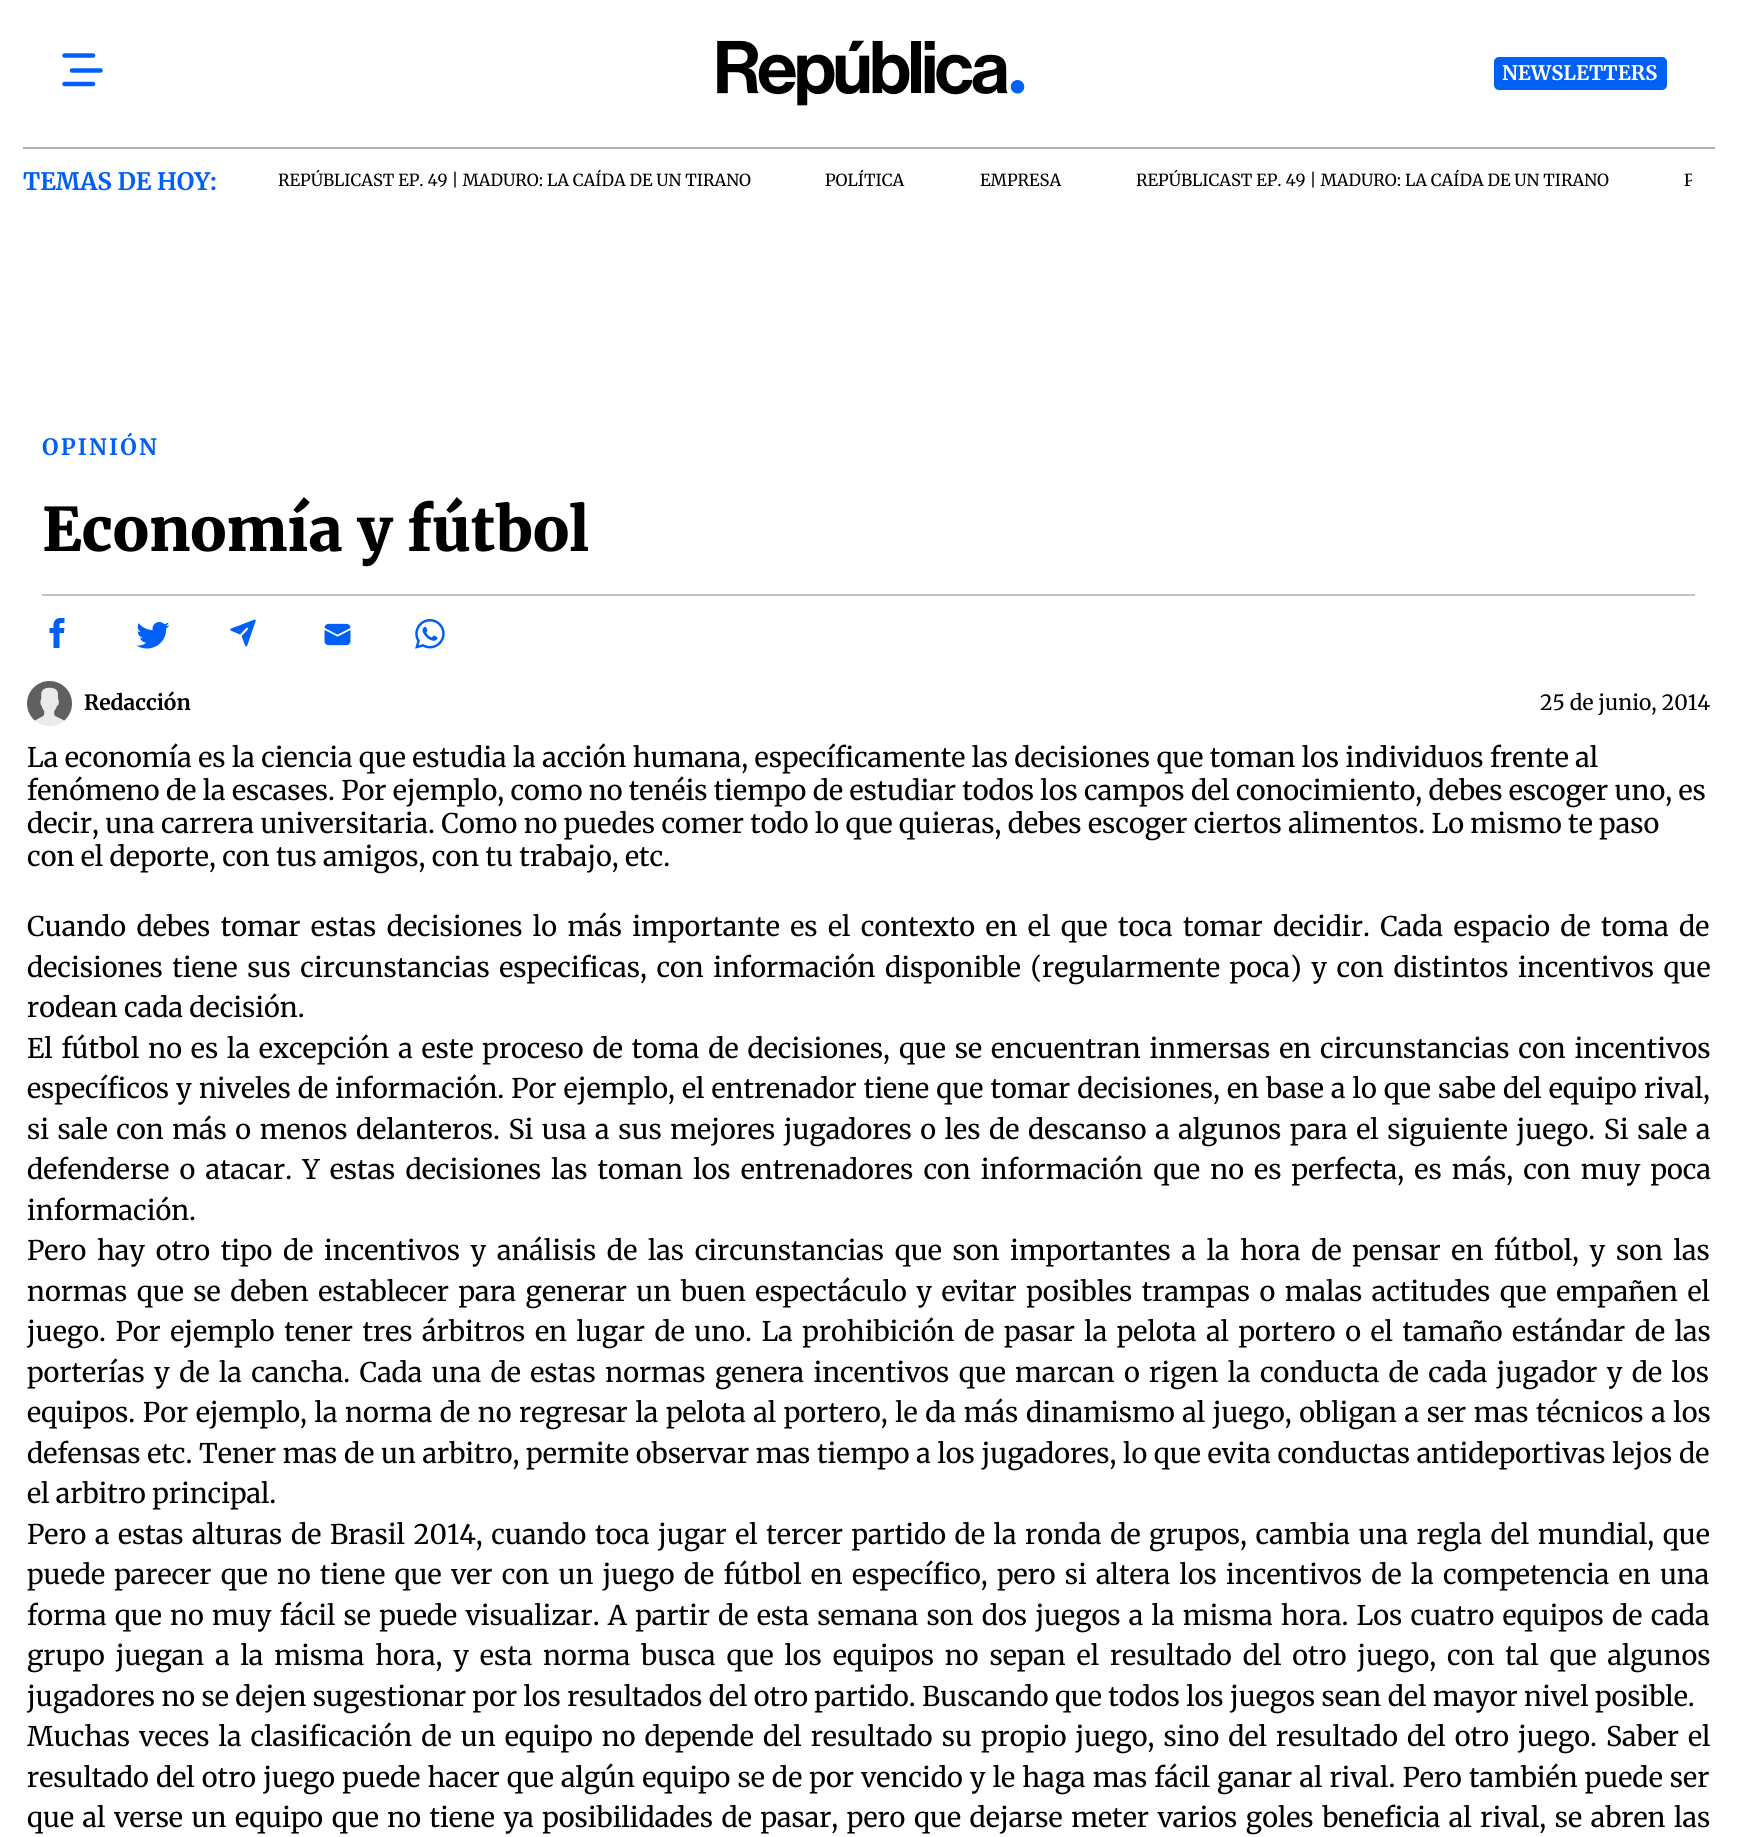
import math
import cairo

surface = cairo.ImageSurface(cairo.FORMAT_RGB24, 1737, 1837)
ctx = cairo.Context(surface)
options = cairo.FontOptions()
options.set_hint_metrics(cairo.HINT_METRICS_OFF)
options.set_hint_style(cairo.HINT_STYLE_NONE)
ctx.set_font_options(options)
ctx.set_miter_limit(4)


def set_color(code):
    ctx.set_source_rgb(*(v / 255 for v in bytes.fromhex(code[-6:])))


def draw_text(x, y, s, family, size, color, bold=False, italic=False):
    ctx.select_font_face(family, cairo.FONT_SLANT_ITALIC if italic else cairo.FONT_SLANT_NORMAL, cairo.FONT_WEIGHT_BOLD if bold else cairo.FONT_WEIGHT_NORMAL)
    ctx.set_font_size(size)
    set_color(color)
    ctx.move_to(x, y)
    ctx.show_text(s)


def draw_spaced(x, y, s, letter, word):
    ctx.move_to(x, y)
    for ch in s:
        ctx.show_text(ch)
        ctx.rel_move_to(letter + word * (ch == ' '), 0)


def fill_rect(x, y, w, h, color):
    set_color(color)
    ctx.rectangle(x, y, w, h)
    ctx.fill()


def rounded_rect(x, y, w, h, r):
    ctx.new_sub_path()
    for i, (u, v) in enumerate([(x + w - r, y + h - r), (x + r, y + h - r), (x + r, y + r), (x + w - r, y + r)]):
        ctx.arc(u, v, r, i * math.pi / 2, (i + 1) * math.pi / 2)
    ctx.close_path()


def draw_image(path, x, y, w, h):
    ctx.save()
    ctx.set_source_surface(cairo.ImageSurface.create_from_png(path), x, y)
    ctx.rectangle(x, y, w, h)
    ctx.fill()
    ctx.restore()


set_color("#ffffff")
ctx.paint()
ctx.new_path()
ctx.move_to(64.5, 55.5)
ctx.line_to(93, 55.5)
ctx.move_to(64.5, 84)
ctx.line_to(93, 84)
ctx.move_to(72, 70.5)
ctx.line_to(100.5, 70.5)
set_color("#005ff5")
ctx.set_line_width(4.5)
ctx.set_line_cap(cairo.LINE_CAP_ROUND)
ctx.set_line_join(cairo.LINE_JOIN_ROUND)
ctx.stroke()
draw_image("assets/img1.png", 717, 40, 308, 66)
rounded_rect(1494, 57, 173, 33, 5)
ctx.fill()
draw_text(1502, 80, "NEWSLETTERS", "Merriweather", 20, "#ffffff", bold=True)
fill_rect(23, 147, 1692, 2, "#b1b1b1")
draw_text(23, 190, "TEMAS DE HOY:", "Merriweather", 24, "#005ff5", bold=True)
draw_text(278, 186, "REPÚBLICAST EP. 49 | MADURO: LA CAÍDA DE UN TIRANO", "Merriweather", 16.55, "#000000")
draw_text(825, 186, "POLÍTICA", "Merriweather", 16.55, "#000000")
draw_text(980, 186, "EMPRESA", "Merriweather", 16.55, "#000000")
draw_text(1136, 186, "REPÚBLICAST EP. 49 | MADURO: LA CAÍDA DE UN TIRANO", "Merriweather", 16.55, "#000000")
ctx.save()
ctx.rectangle(240, 168, 1452, 33)
ctx.clip()
draw_text(1684, 186, "P", "Merriweather", 16.55, "#000000")
ctx.restore()
ctx.select_font_face("Merriweather", cairo.FONT_SLANT_NORMAL, cairo.FONT_WEIGHT_BOLD)
ctx.set_font_size(22.5)
set_color("#005ff5")
draw_spaced(42, 455, "OPINIÓN", 2.25, 0)
draw_text(42, 551, "Economía y fútbol", "Merriweather Black", 60, "#000000")
fill_rect(42, 594, 1653, 2, "#c4c2c2")
draw_image("assets/img2.png", 49, 618, 16, 30)
draw_image("assets/img3.png", 136, 622, 34, 27)
draw_image("assets/img4.png", 230, 619, 26, 28)
draw_image("assets/img5.png", 324, 623, 27, 23)
draw_image("assets/img6.png", 415, 619, 30, 30)
draw_image("assets/img7.png", 27, 681, 45, 45)
draw_text(84, 710, "Redacción", "Merriweather", 21, "#000000", bold=True)
draw_text(1540, 710, "25 de junio, 2014", "Merriweather", 21, "#000000")
draw_text(27, 767, "La economía es la ciencia que estudia la acción humana, específicamente las decisiones que toman los individuos frente al", "Merriweather", 27, "#000000")
draw_text(27, 800, "fenómeno de la escases. Por ejemplo, como no tenéis tiempo de estudiar todos los campos del conocimiento, debes escoger uno, es", "Merriweather", 27, "#000000")
draw_text(27, 833, "decir, una carrera universitaria. Como no puedes comer todo lo que quieras, debes escoger ciertos alimentos. Lo mismo te paso", "Merriweather", 27, "#000000")
draw_text(27, 866, "con el deporte, con tus amigos, con tu trabajo, etc.", "Merriweather", 27, "#000000")
draw_spaced(27, 936, "Cuando debes tomar estas decisiones lo más importante es el contexto en el que toca tomar decidir. Cada espacio de toma de", 0, 4)
draw_spaced(27, 977, "decisiones tiene sus circunstancias especificas, con información disponible (regularmente poca) y con distintos incentivos que", 0, 3.2)
draw_text(27, 1017, "rodean cada decisión.", "Merriweather", 27, "#000000")
draw_spaced(27, 1058, "El fútbol no es la excepción a este proceso de toma de decisiones, que se encuentran inmersas en circunstancias con incentivos", 0, 2.5)
draw_spaced(27, 1098, "específicos y niveles de información. Por ejemplo, el entrenador tiene que tomar decisiones, en base a lo que sabe del equipo rival,", 0, 0.7)
draw_spaced(27, 1139, "si sale con más o menos delanteros. Si usa a sus mejores jugadores o les de descanso a algunos para el siguiente juego. Si sale a", 0, 2.2)
draw_spaced(27, 1179, "defenderse o atacar. Y estas decisiones las toman los entrenadores con información que no es perfecta, es más, con muy poca", 0, 3.75)
draw_text(27, 1220, "información.", "Merriweather", 27, "#000000")
draw_spaced(27, 1260, "Pero hay otro tipo de incentivos y análisis de las circunstancias que son importantes a la hora de pensar en fútbol, y son las", 0, 4.3)
draw_spaced(27, 1301, "normas que se deben establecer para generar un buen espectáculo y evitar posibles trampas o malas actitudes que empañen el", 0, 3.1)
draw_spaced(27, 1341, "juego. Por ejemplo tener tres árbitros en lugar de uno. La prohibición de pasar la pelota al portero o el tamaño estándar de las", 0, 3.2)
draw_spaced(27, 1382, "porterías y de la cancha. Cada una de estas normas genera incentivos que marcan o rigen la conducta de cada jugador y de los", 0, 3)
draw_spaced(27, 1422, "equipos. Por ejemplo, la norma de no regresar la pelota al portero, le da más dinamismo al juego, obligan a ser mas técnicos a los", 0, 1.25)
draw_spaced(27, 1463, "defensas etc. Tener mas de un arbitro, permite observar mas tiempo a los jugadores, lo que evita conductas antideportivas lejos de", 0, 0.3)
draw_text(27, 1503, "el arbitro principal.", "Merriweather", 27, "#000000")
draw_spaced(27, 1544, "Pero a estas alturas de Brasil 2014, cuando toca jugar el tercer partido de la ronda de grupos, cambia una regla del mundial, que", 0, 2.2)
draw_spaced(27, 1584, "puede parecer que no tiene que ver con un juego de fútbol en específico, pero si altera los incentivos de la competencia en una", 0, 2.9)
draw_spaced(27, 1625, "forma que no muy fácil se puede visualizar. A partir de esta semana son dos juegos a la misma hora. Los cuatro equipos de cada", 0, 1.9)
draw_spaced(27, 1665, "grupo juegan a la misma hora, y esta norma busca que los equipos no sepan el resultado del otro juego, con tal que algunos", 0, 4.5)
draw_text(27, 1706, "jugadores no se dejen sugestionar por los resultados del otro partido. Buscando que todos los juegos sean del mayor nivel posible.", "Merriweather", 27, "#000000")
draw_spaced(27, 1746, "Muchas veces la clasificación de un equipo no depende del resultado su propio juego, sino del resultado del otro juego. Saber el", 0, 2.7)
draw_spaced(27, 1787, "resultado del otro juego puede hacer que algún equipo se de por vencido y le haga mas fácil ganar al rival. Pero también puede ser", 0, 0.75)
draw_spaced(27, 1827, "que al verse un equipo que no tiene ya posibilidades de pasar, pero que dejarse meter varios goles beneficia al rival, se abren las", 0, 2.2)
surface.write_to_png("output.png")
